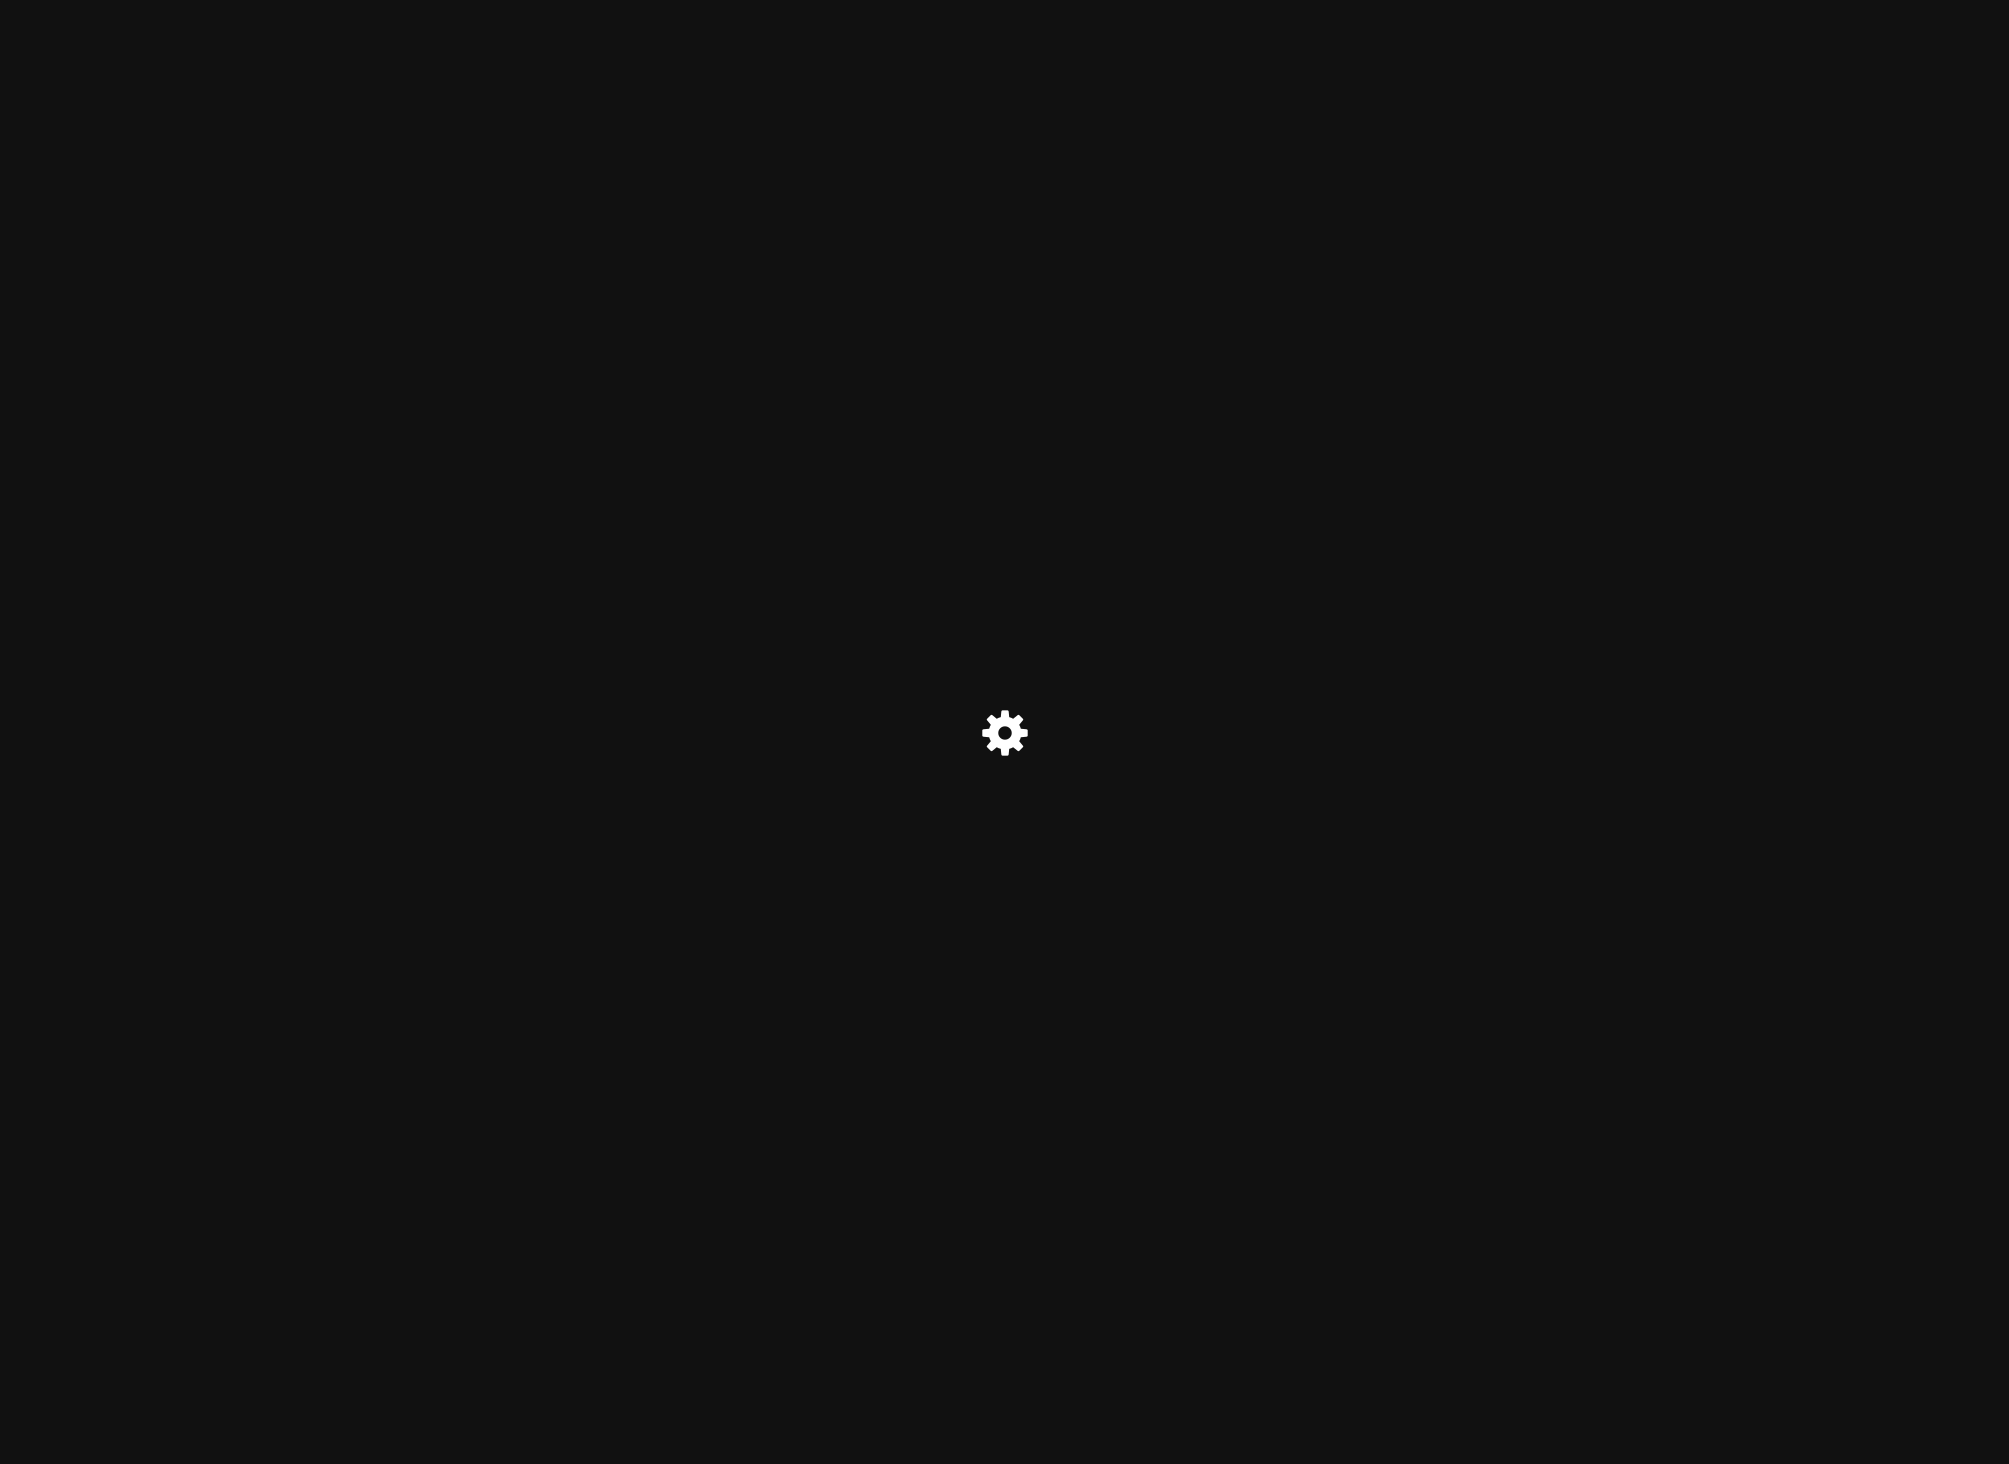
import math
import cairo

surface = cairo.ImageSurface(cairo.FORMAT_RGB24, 2009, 1464)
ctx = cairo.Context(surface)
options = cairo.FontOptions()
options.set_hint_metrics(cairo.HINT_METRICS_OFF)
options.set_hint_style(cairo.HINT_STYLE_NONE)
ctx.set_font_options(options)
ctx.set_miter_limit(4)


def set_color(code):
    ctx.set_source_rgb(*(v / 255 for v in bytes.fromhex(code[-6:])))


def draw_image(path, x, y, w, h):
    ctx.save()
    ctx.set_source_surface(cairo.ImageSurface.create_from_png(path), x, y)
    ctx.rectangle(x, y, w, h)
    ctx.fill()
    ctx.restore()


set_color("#111111")
ctx.paint()
draw_image("assets/img1.png", 982, 710, 46, 46)
surface.write_to_png("output.png")
